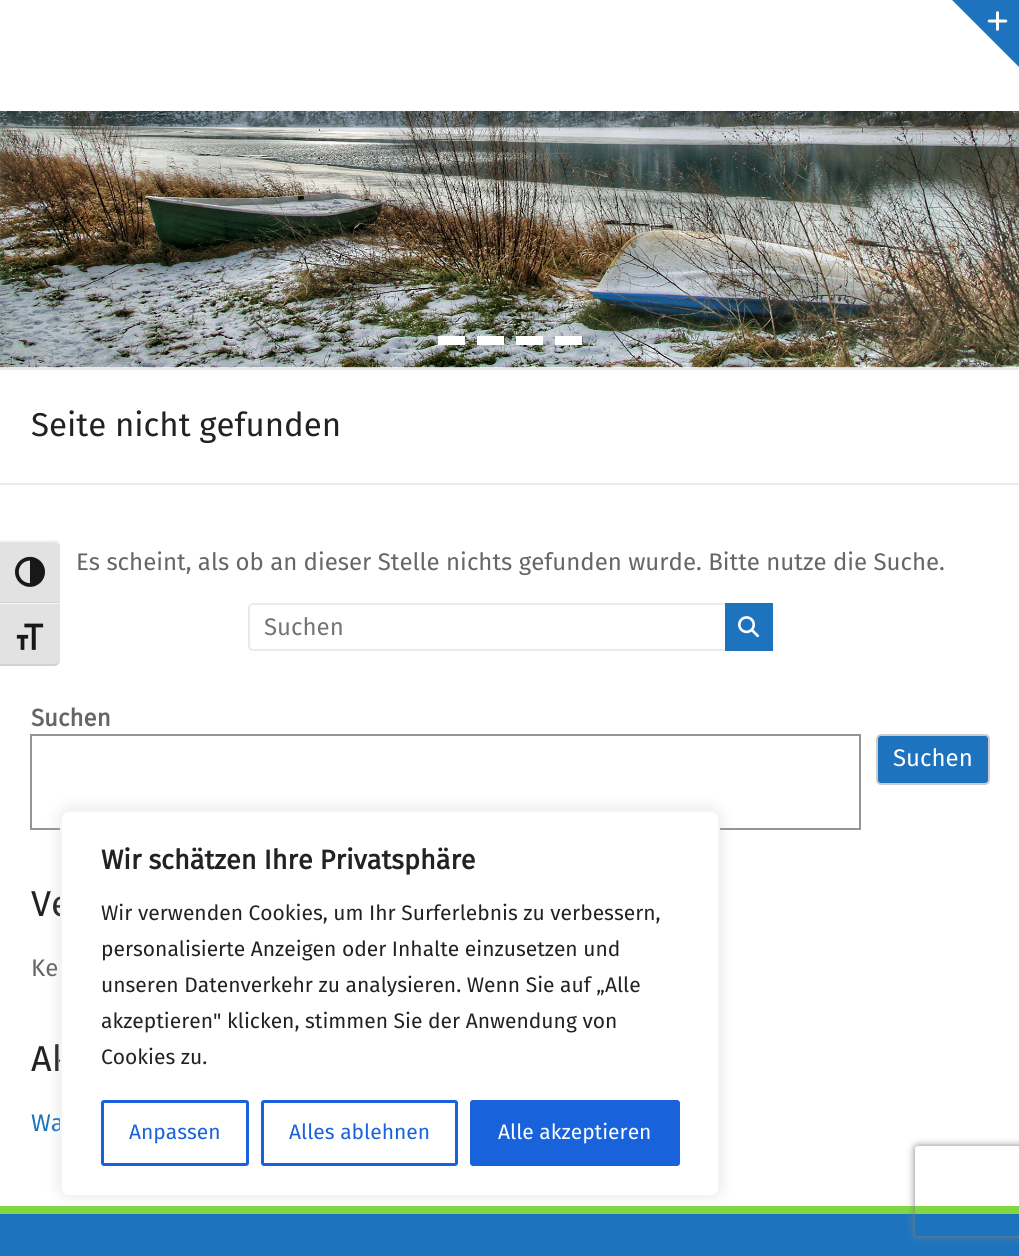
import math
import cairo

surface = cairo.ImageSurface(cairo.FORMAT_RGB24, 1019, 1256)
ctx = cairo.Context(surface)
options = cairo.FontOptions()
options.set_hint_metrics(cairo.HINT_METRICS_OFF)
options.set_hint_style(cairo.HINT_STYLE_NONE)
ctx.set_font_options(options)
ctx.set_miter_limit(4)


def set_color(code):
    ctx.set_source_rgb(*(v / 255 for v in bytes.fromhex(code[-6:])))


def draw_text(x, y, s, family, size, color, bold=False, italic=False):
    ctx.select_font_face(family, cairo.FONT_SLANT_ITALIC if italic else cairo.FONT_SLANT_NORMAL, cairo.FONT_WEIGHT_BOLD if bold else cairo.FONT_WEIGHT_NORMAL)
    ctx.set_font_size(size)
    set_color(color)
    ctx.move_to(x, y)
    ctx.show_text(s)


def fill_rect(x, y, w, h, color):
    set_color(color)
    ctx.rectangle(x, y, w, h)
    ctx.fill()


def rounded_rect(x, y, w, h, r):
    ctx.new_sub_path()
    for i, (u, v) in enumerate([(x + w - r, y + h - r), (x + r, y + h - r), (x + r, y + r), (x + w - r, y + r)]):
        ctx.arc(u, v, r, i * math.pi / 2, (i + 1) * math.pi / 2)
    ctx.close_path()


def draw_shadow(x, y, w, h, r, blur, alpha):
    ctx.push_group_with_content(cairo.CONTENT_ALPHA)
    ctx.set_operator(cairo.OPERATOR_SOURCE)
    for i in range(15, -16, -2):
        e = blur * i / 6
        if min(w, h) + 2 * e > 0:
            ctx.set_source_rgba(0, 0, 0, alpha * math.erfc((i - 1) / 8.5) / 2)
            rounded_rect(x - e, y - e, w + 2 * e, h + 2 * e, max(0, min(r + e + blur * .6, min(w, h) / 2 + e)))
            ctx.fill()
    ctx.mask(ctx.pop_group())


def draw_image(path, x, y, w, h):
    ctx.save()
    ctx.set_source_surface(cairo.ImageSurface.create_from_png(path), x, y)
    ctx.rectangle(x, y, w, h)
    ctx.fill()
    ctx.restore()


set_color("#ffffff")
ctx.paint()
set_color("#1e73be")
ctx.new_path()
ctx.move_to(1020, 0)
ctx.line_to(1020, 68)
ctx.line_to(952, 0)
ctx.close_path()
ctx.fill()
draw_image("assets/img1.png", 987, 11, 21, 20)
fill_rect(0, 368, 1019, 2, "#eaeaea")
draw_image("assets/img2.png", 0, 111, 1019, 257)
fill_rect(438, 336, 27, 9, "#ffffff")
fill_rect(477, 336, 27, 9, "#ffffff")
fill_rect(516, 336, 27, 9, "#ffffff")
fill_rect(555, 336, 27, 9, "#ffffff")
fill_rect(0, 483, 1019, 2, "#eaeaea")
draw_text(31, 436, "Seite nicht gefunden", "Fira Sans", 33, "#222222")
draw_text(76, 570, "Es scheint, als ob an dieser Stelle nichts gefunden wurde. Bitte nutze die Suche.", "Fira Sans", 24, "#666666")
rounded_rect(249, 604, 478, 46, 4)
set_color("#eaeaea")
ctx.stroke()
draw_text(264, 635, "Suchen", "Fira Sans", 24, "#757575")
fill_rect(725, 603, 48, 48, "#1e73be")
draw_image("assets/img3.png", 738, 616, 21, 22)
draw_text(31, 726, "Suchen", "Fira Sans", 24, "#666666", bold=True)
ctx.rectangle(31, 735, 829, 94)
set_color("#949494")
ctx.stroke()
set_color("#1e73be")
rounded_rect(877, 735, 112, 49, 4)
ctx.fill_preserve()
set_color("#cccccc")
ctx.stroke()
draw_text(893, 766, "Suchen", "Fira Sans", 24, "#ffffff")
draw_text(31, 916, "Ve", "Fira Sans", 36, "#222222")
draw_text(31, 976, "Ke", "Fira Sans", 24, "#666666")
draw_text(31, 1071, "Ak", "Fira Sans", 36, "#222222")
draw_text(31, 1131, "Wa", "Fira Sans", 24, "#1e73be")
fill_rect(0, 1214, 1019, 42, "#1e73be")
fill_rect(0, 1206, 1019, 8, "#81d742")
set_color("#e2e2e2")
ctx.new_path()
ctx.move_to(0, 540)
ctx.line_to(54, 540)
ctx.curve_to(57.5, 540, 60, 542.5, 60, 546)
ctx.line_to(60, 603)
ctx.line_to(0, 603)
ctx.close_path()
ctx.fill()
set_color("#f5f5f5")
ctx.new_path()
ctx.move_to(0, 540)
ctx.line_to(0, 542)
ctx.line_to(54, 542)
ctx.curve_to(57, 542, 60, 544, 60, 546)
ctx.curve_to(60, 543, 57, 540, 54, 540)
ctx.close_path()
ctx.fill()
fill_rect(0, 602, 60, 1, "#d2d2d2")
draw_image("assets/img4.png", 15, 556, 30, 31)
set_color("#e2e2e2")
ctx.new_path()
ctx.move_to(0, 603)
ctx.line_to(60, 603)
ctx.line_to(60, 660)
ctx.curve_to(60, 663.5, 57.5, 666, 54, 666)
ctx.line_to(0, 666)
ctx.close_path()
ctx.fill()
fill_rect(0, 603, 60, 1, "#f5f5f5")
set_color("#d2d2d2")
ctx.new_path()
ctx.move_to(0, 664)
ctx.line_to(0, 666)
ctx.line_to(54, 666)
ctx.curve_to(57, 666, 60, 663, 60, 660)
ctx.curve_to(60, 662, 57, 664, 54, 664)
ctx.close_path()
ctx.fill()
draw_image("assets/img5.png", 16, 623, 28, 27)
set_color("#acabab")
draw_shadow(60, 809, 660, 387, 9, 7.5, 0.3)
set_color("#ffffff")
rounded_rect(61, 811, 658, 385, 8)
ctx.fill_preserve()
set_color("#f4f4f4")
ctx.stroke()
draw_text(101, 869, "Wir schätzen Ihre Privatsphäre", "Fira Sans", 27, "#222222", bold=True)
draw_text(101, 920, "Wir verwenden Cookies, um Ihr Surferlebnis zu verbessern,", "Fira Sans", 21, "#222222")
draw_text(101, 956, "personalisierte Anzeigen oder Inhalte einzusetzen und", "Fira Sans", 21, "#222222")
draw_text(101, 992, "unseren Datenverkehr zu analysieren. Wenn Sie auf „Alle", "Fira Sans", 21, "#222222")
draw_text(101, 1028, "akzeptieren\" klicken, stimmen Sie der Anwendung von", "Fira Sans", 21, "#222222")
draw_text(101, 1064, "Cookies zu.", "Fira Sans", 21, "#222222")
rounded_rect(102.5, 1101.5, 145, 63, 1.5)
set_color("#1863dc")
ctx.set_line_width(3)
ctx.stroke()
draw_text(129, 1139, "Anpassen", "Fira Sans", 21, "#1863dc")
rounded_rect(262.5, 1101.5, 194, 63, 1.5)
ctx.stroke()
draw_text(289, 1139, "Alles ablehnen", "Fira Sans", 21, "#1863dc")
rounded_rect(471.5, 1101.5, 207, 63, 1.5)
ctx.fill_preserve()
ctx.stroke()
draw_text(498, 1139, "Alle akzeptieren", "Fira Sans", 21, "#ffffff")
ctx.save()
ctx.set_fill_rule(cairo.FILL_RULE_EVEN_ODD)
ctx.new_path()
ctx.move_to(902, 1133)
ctx.line_to(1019, 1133)
ctx.line_to(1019, 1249)
ctx.line_to(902, 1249)
ctx.close_path()
ctx.move_to(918, 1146)
ctx.line_to(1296, 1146)
ctx.curve_to(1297.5, 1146, 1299, 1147.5, 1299, 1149)
ctx.line_to(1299, 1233)
ctx.curve_to(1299, 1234.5, 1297.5, 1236, 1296, 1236)
ctx.line_to(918, 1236)
ctx.curve_to(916.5, 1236, 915, 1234.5, 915, 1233)
ctx.line_to(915, 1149)
ctx.curve_to(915, 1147.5, 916.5, 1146, 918, 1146)
ctx.close_path()
ctx.clip()
set_color("#808080")
draw_shadow(915, 1146, 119, 90, 3, 4, 1)
ctx.restore()
surface.write_to_png("output.png")
